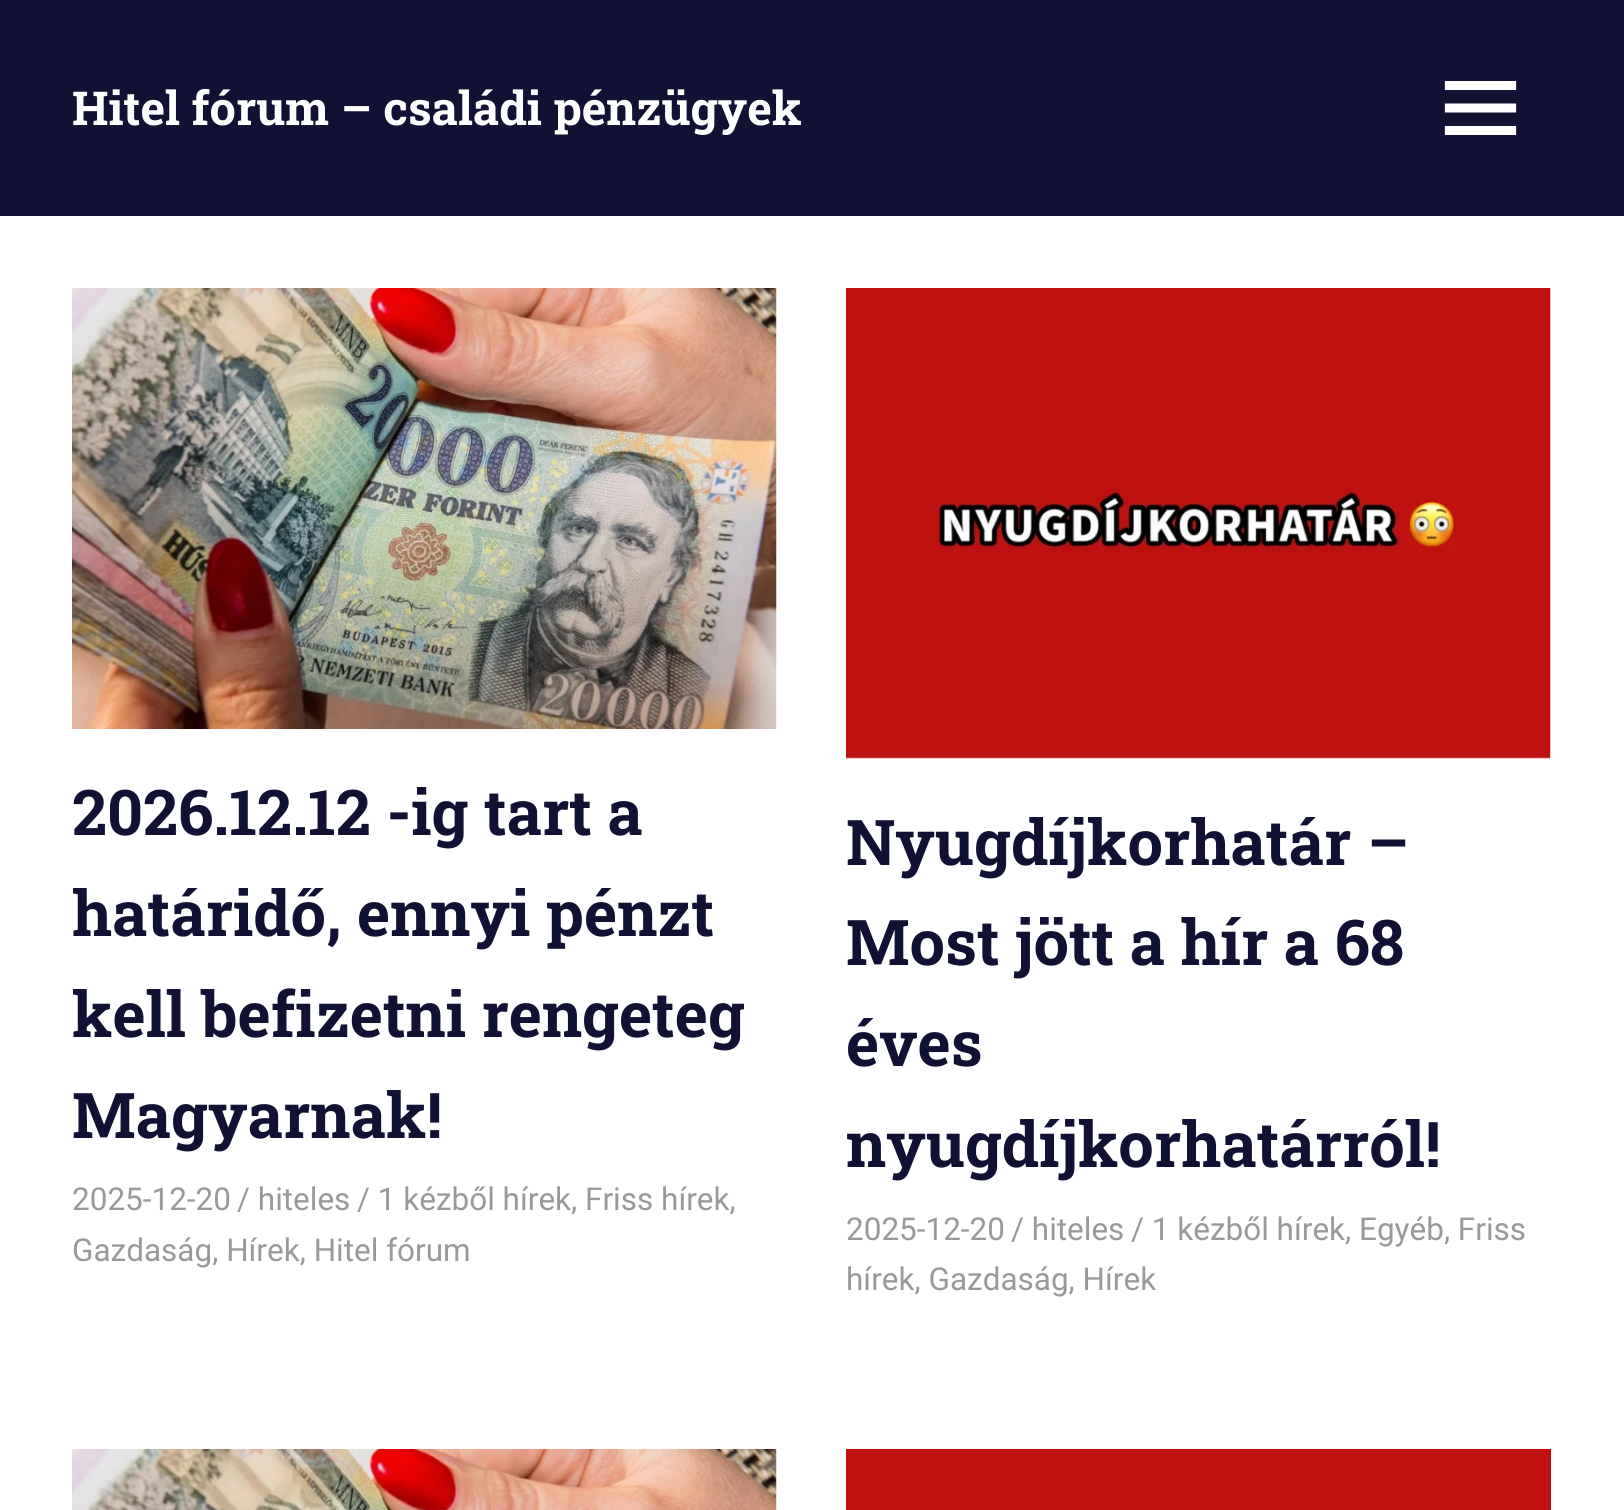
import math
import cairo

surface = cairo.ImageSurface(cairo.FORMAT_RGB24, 1624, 1510)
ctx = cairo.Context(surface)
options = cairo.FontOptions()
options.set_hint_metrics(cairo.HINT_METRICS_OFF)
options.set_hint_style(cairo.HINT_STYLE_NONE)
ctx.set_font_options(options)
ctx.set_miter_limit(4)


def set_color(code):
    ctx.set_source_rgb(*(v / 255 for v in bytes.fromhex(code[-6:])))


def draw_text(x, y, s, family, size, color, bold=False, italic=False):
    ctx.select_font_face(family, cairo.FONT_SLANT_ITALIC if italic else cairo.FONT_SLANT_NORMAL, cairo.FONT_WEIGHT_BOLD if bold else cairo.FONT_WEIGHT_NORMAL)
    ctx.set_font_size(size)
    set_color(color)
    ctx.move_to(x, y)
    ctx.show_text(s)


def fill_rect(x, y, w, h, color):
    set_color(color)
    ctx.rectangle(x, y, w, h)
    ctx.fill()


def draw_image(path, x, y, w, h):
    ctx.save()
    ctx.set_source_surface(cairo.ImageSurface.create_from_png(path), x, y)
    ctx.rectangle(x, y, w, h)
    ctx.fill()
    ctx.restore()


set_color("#ffffff")
ctx.paint()
fill_rect(0, 0, 1624, 216, "#111133")
draw_text(72, 125, "Hitel fórum – családi pénzügyek", "Roboto Slab", 46.75, "#ffffff", bold=True)
draw_image("assets/img1.png", 1444, 81, 73, 54)
draw_image("assets/img2.png", 72, 288, 705, 441)
draw_text(72, 835, "2026.12.12 -ig tart a", "Roboto Slab", 63, "#111133", bold=True)
draw_text(72, 936, "határidő, ennyi pénzt", "Roboto Slab", 63, "#111133", bold=True)
draw_text(72, 1037, "kell befizetni rengeteg", "Roboto Slab", 63, "#111133", bold=True)
draw_text(72, 1138, "Magyarnak!", "Roboto Slab", 63, "#111133", bold=True)
draw_text(72, 1210, "2025-12-20", "Roboto", 31.5, "#999999")
draw_text(237, 1210, "/ hiteles", "Roboto", 31.5, "#999999")
draw_text(357, 1210, "/ 1 kézből hírek, Friss hírek,", "Roboto", 31.5, "#999999")
draw_text(72, 1261, "Gazdaság, Hírek, Hitel fórum", "Roboto", 31.5, "#999999")
draw_image("assets/img3.png", 846, 288, 705, 471)
draw_text(846, 865, "Nyugdíjkorhatár –", "Roboto Slab", 63, "#111133", bold=True)
draw_text(846, 965, "Most jött a hír a 68", "Roboto Slab", 63, "#111133", bold=True)
draw_text(846, 1066, "éves", "Roboto Slab", 63, "#111133", bold=True)
draw_text(846, 1167, "nyugdíjkorhatárról!", "Roboto Slab", 63, "#111133", bold=True)
draw_text(846, 1240, "2025-12-20", "Roboto", 31.5, "#999999")
draw_text(1011, 1240, "/ hiteles", "Roboto", 31.5, "#999999")
draw_text(1131, 1240, "/ 1 kézből hírek, Egyéb, Friss", "Roboto", 31.5, "#999999")
draw_text(846, 1290, "hírek, Gazdaság, Hírek", "Roboto", 31.5, "#999999")
draw_image("assets/img4.png", 72, 1449, 705, 61)
fill_rect(846, 1449, 705, 61, "#be1110")
surface.write_to_png("output.png")
